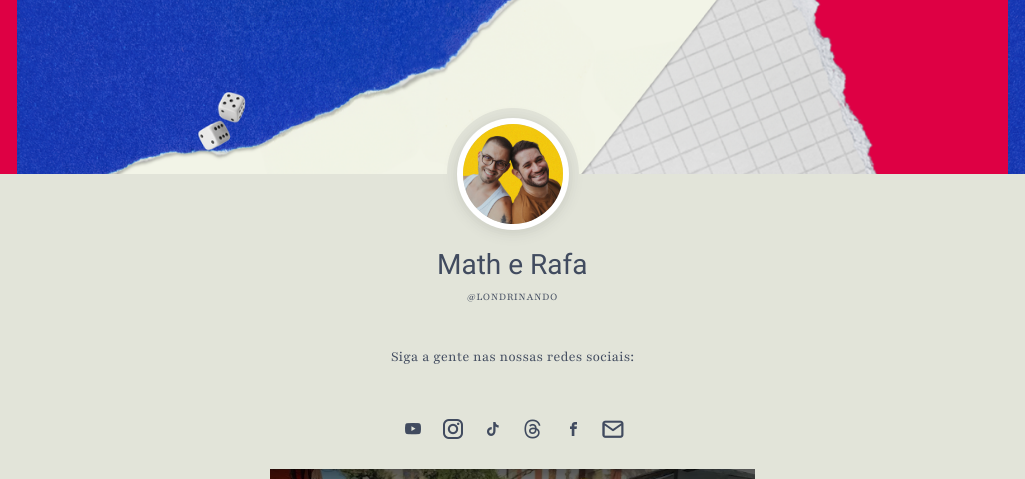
import math
import cairo

surface = cairo.ImageSurface(cairo.FORMAT_RGB24, 1025, 479)
ctx = cairo.Context(surface)
options = cairo.FontOptions()
options.set_hint_metrics(cairo.HINT_METRICS_OFF)
options.set_hint_style(cairo.HINT_STYLE_NONE)
ctx.set_font_options(options)
ctx.set_miter_limit(4)


def set_color(code):
    ctx.set_source_rgb(*(v / 255 for v in bytes.fromhex(code[-6:])))


def draw_text(x, y, s, family, size, color, bold=False, italic=False):
    ctx.select_font_face(family, cairo.FONT_SLANT_ITALIC if italic else cairo.FONT_SLANT_NORMAL, cairo.FONT_WEIGHT_BOLD if bold else cairo.FONT_WEIGHT_NORMAL)
    ctx.set_font_size(size)
    set_color(color)
    ctx.move_to(x, y)
    ctx.show_text(s)


def draw_spaced(x, y, s, letter, word):
    ctx.move_to(x, y)
    for ch in s:
        ctx.show_text(ch)
        ctx.rel_move_to(letter + word * (ch == ' '), 0)


def rounded_rect(x, y, w, h, r):
    ctx.new_sub_path()
    for i, (u, v) in enumerate([(x + w - r, y + h - r), (x + r, y + h - r), (x + r, y + r), (x + w - r, y + r)]):
        ctx.arc(u, v, r, i * math.pi / 2, (i + 1) * math.pi / 2)
    ctx.close_path()


def draw_shadow(x, y, w, h, r, blur, alpha):
    ctx.push_group_with_content(cairo.CONTENT_ALPHA)
    ctx.set_operator(cairo.OPERATOR_SOURCE)
    for i in range(15, -16, -2):
        e = blur * i / 6
        if min(w, h) + 2 * e > 0:
            ctx.set_source_rgba(0, 0, 0, alpha * math.erfc((i - 1) / 8.5) / 2)
            rounded_rect(x - e, y - e, w + 2 * e, h + 2 * e, max(0, min(r + e + blur * .6, min(w, h) / 2 + e)))
            ctx.fill()
    ctx.mask(ctx.pop_group())


def draw_image(path, x, y, w, h):
    ctx.save()
    ctx.set_source_surface(cairo.ImageSurface.create_from_png(path), x, y)
    ctx.rectangle(x, y, w, h)
    ctx.fill()
    ctx.restore()


set_color("#e2e4d9")
ctx.paint()
draw_image("assets/img1.png", 0, 0, 1025, 174)
draw_image("assets/img2.png", 17, 0, 991, 174)
ctx.save()
rounded_rect(447, 108, 132, 132, 66)
ctx.clip()
set_color("#e2e4d9")
ctx.new_path()
ctx.move_to(513, 108)
ctx.curve_to(549.5, 108, 579, 137.5, 579, 174)
ctx.line_to(579, 178)
ctx.line_to(447, 178)
ctx.line_to(447, 174)
ctx.curve_to(447, 137.5, 476.5, 108, 513, 108)
ctx.close_path()
ctx.fill()
ctx.restore()
set_color("#000000")
draw_shadow(457, 120, 112, 112, 56, 7.5, 0.12)
ctx.arc(513, 174, 53, 0, 2 * math.pi)
set_color("#ffffff")
ctx.set_line_width(6)
ctx.stroke()
draw_image("assets/img3.png", 463, 124, 100, 100)
draw_text(437, 274, "Math e Rafa", "Roboto", 28, "#414b5f")
ctx.select_font_face("Playfair")
ctx.set_font_size(11)
draw_spaced(467, 300, "@LONDRINANDO", 0.5, 0)
ctx.select_font_face("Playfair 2")
ctx.set_font_size(15)
draw_spaced(391, 361, "Siga a gente nas nossas redes sociais:", 0, 0.5)
draw_image("assets/img4.png", 405, 423, 16, 12)
draw_image("assets/img5.png", 443, 419, 20, 20)
draw_image("assets/img6.png", 487, 422, 12, 14)
draw_image("assets/img7.png", 524, 419, 17, 20)
draw_image("assets/img8.png", 570, 422, 7, 14)
draw_image("assets/img9.png", 602, 420, 22, 18)
draw_image("assets/img10.png", 270, 469, 485, 10)
surface.write_to_png("output.png")
